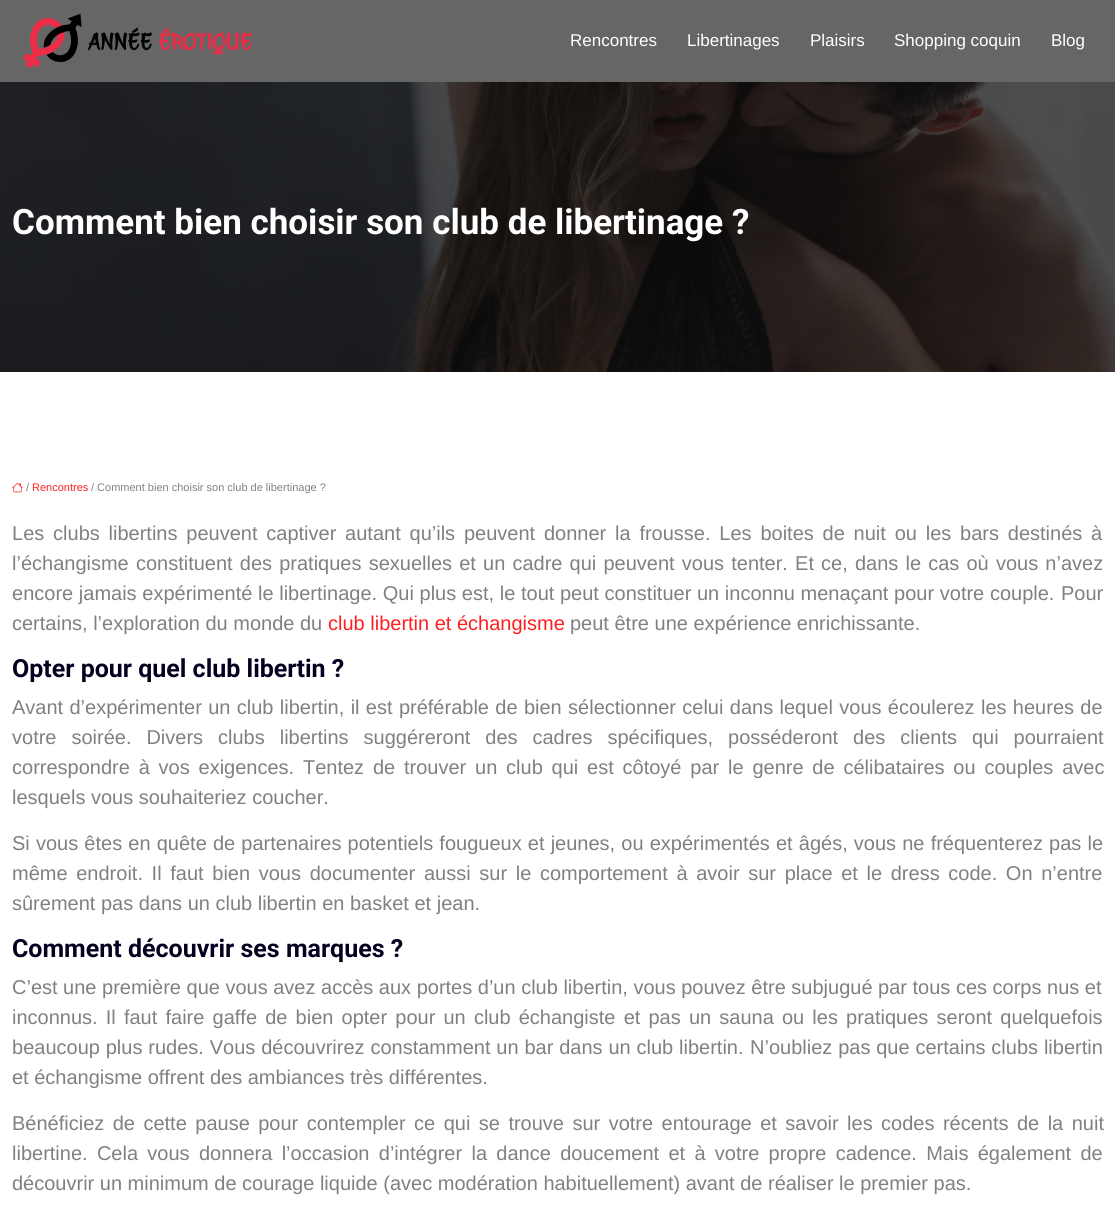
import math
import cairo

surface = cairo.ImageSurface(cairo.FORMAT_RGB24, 1115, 1217)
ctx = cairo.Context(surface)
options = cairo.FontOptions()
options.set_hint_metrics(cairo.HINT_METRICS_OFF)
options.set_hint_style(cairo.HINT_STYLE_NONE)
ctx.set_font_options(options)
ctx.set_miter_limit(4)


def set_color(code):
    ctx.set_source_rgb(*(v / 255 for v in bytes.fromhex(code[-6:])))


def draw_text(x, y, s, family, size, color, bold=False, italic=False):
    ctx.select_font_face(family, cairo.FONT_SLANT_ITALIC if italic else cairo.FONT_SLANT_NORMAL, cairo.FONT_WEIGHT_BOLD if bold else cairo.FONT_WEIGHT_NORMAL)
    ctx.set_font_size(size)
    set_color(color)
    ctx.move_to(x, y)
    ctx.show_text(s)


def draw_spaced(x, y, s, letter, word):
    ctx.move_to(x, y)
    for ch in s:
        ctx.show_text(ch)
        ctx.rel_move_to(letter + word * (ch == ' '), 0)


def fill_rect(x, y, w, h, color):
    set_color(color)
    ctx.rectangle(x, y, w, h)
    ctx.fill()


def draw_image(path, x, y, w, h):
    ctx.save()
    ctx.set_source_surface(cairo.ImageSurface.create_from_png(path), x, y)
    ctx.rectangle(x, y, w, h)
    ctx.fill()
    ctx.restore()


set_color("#ffffff")
ctx.paint()
fill_rect(0, 0, 1115, 82, "#666666")
draw_image("assets/img1.png", 23, 13, 229, 56)
draw_text(570, 46, "Rencontres", "Liberation Sans", 17, "#ffffff")
draw_text(687, 46, "Libertinages", "Liberation Sans", 17, "#ffffff")
draw_text(810, 46, "Plaisirs", "Liberation Sans", 17, "#ffffff")
draw_text(894, 46, "Shopping coquin", "Liberation Sans", 17, "#ffffff")
draw_text(1051, 46, "Blog", "Liberation Sans", 17, "#ffffff")
draw_image("assets/img2.png", 0, 82, 1115, 290)
draw_text(12, 234, "Comment bien choisir son club de libertinage ?", "Roboto", 35, "#ffffff", bold=True)
draw_image("assets/img3.png", 12, 482, 11, 11)
draw_text(26, 491, "/", "Liberation Sans", 11, "#808080")
draw_text(32, 491, "Rencontres", "Liberation Sans", 11, "#ff1f1f")
draw_text(91, 491, "/ Comment bien choisir son club de libertinage ?", "Liberation Sans", 11, "#808080")
ctx.set_font_size(20)
draw_spaced(12, 540, "Les clubs libertins peuvent captiver autant qu’ils peuvent donner la frousse. Les boites de nuit ou les bars destinés à", 0, 3.25)
draw_spaced(12, 570, "l’échangisme constituent des pratiques sexuelles et un cadre qui peuvent vous tenter. Et ce, dans le cas où vous n’avez", 0, 1.6)
draw_spaced(12, 600, "encore jamais expérimenté le libertinage. Qui plus est, le tout peut constituer un inconnu menaçant pour votre couple.", 0, 0.1)
draw_text(1061, 600, "Pour", "Liberation Sans", 20, "#808080")
draw_text(12, 630, "certains, l’exploration du monde du", "Liberation Sans", 20, "#808080")
draw_text(328, 630, "club libertin et échangisme", "Liberation Sans", 20, "#ff1f1f")
draw_text(570, 630, "peut être une expérience enrichissante.", "Liberation Sans", 20, "#808080")
draw_text(12, 677, "Opter pour quel club libertin ?", "Roboto", 25, "#050020", bold=True)
ctx.select_font_face("Liberation Sans")
ctx.set_font_size(20)
set_color("#808080")
draw_spaced(12, 714, "Avant d’expérimenter un club libertin, il est préférable de bien sélectionner celui dans lequel vous écoulerez les heures de", 0, 0.8)
draw_spaced(12, 744, "votre soirée. Divers clubs libertins suggéreront des cadres spécifiques, posséderont des clients qui pourraient", 0, 9.4)
draw_spaced(12, 774, "correspondre à vos exigences. Tentez de trouver un club qui est côtoyé par le genre de célibataires ou couples avec", 0, 3.25)
draw_text(12, 804, "lesquels vous souhaiteriez coucher.", "Liberation Sans", 20, "#808080")
draw_spaced(12, 850, "Si vous êtes en quête de partenaires potentiels fougueux et jeunes, ou expérimentés et âgés, vous ne fréquenterez pas le", 0, 0.6)
draw_spaced(12, 880, "même endroit. Il faut bien vous documenter aussi sur le comportement à avoir sur place et le dress code. On n’entre", 0, 3.1)
draw_text(12, 910, "sûrement pas dans un club libertin en basket et jean.", "Liberation Sans", 20, "#808080")
draw_text(12, 957, "Comment découvrir ses marques ?", "Roboto", 25, "#050020", bold=True)
draw_text(12, 994, "C’est une première que vous avez accès aux portes d’un club libertin, vous pouvez être subjugué par tous ces corps nus et", "Liberation Sans", 20, "#808080")
draw_spaced(12, 1024, "inconnus. Il faut faire gaffe de bien opter pour un club échangiste et pas un sauna ou les pratiques seront quelquefois", 0, 2.6)
draw_spaced(12, 1054, "beaucoup plus rudes. Vous découvrirez constamment un bar dans un club libertin.", 0, 0.3)
draw_spaced(750, 1054, "N’oubliez pas que certains clubs libertin", 0, 0.3)
draw_text(12, 1084, "et échangisme offrent des ambiances très différentes.", "Liberation Sans", 20, "#808080")
draw_spaced(12, 1130, "Bénéficiez de cette pause pour contempler ce qui se trouve sur votre entourage et savoir les codes récents de la nuit", 0, 2.9)
draw_spaced(12, 1160, "libertine. Cela vous donnera l’occasion d’intégrer la dance doucement et à votre propre cadence. Mais également de", 0, 3.75)
draw_text(12, 1190, "découvrir un minimum de courage liquide (avec modération habituellement) avant de réaliser le premier pas.", "Liberation Sans", 20, "#808080")
surface.write_to_png("output.png")
